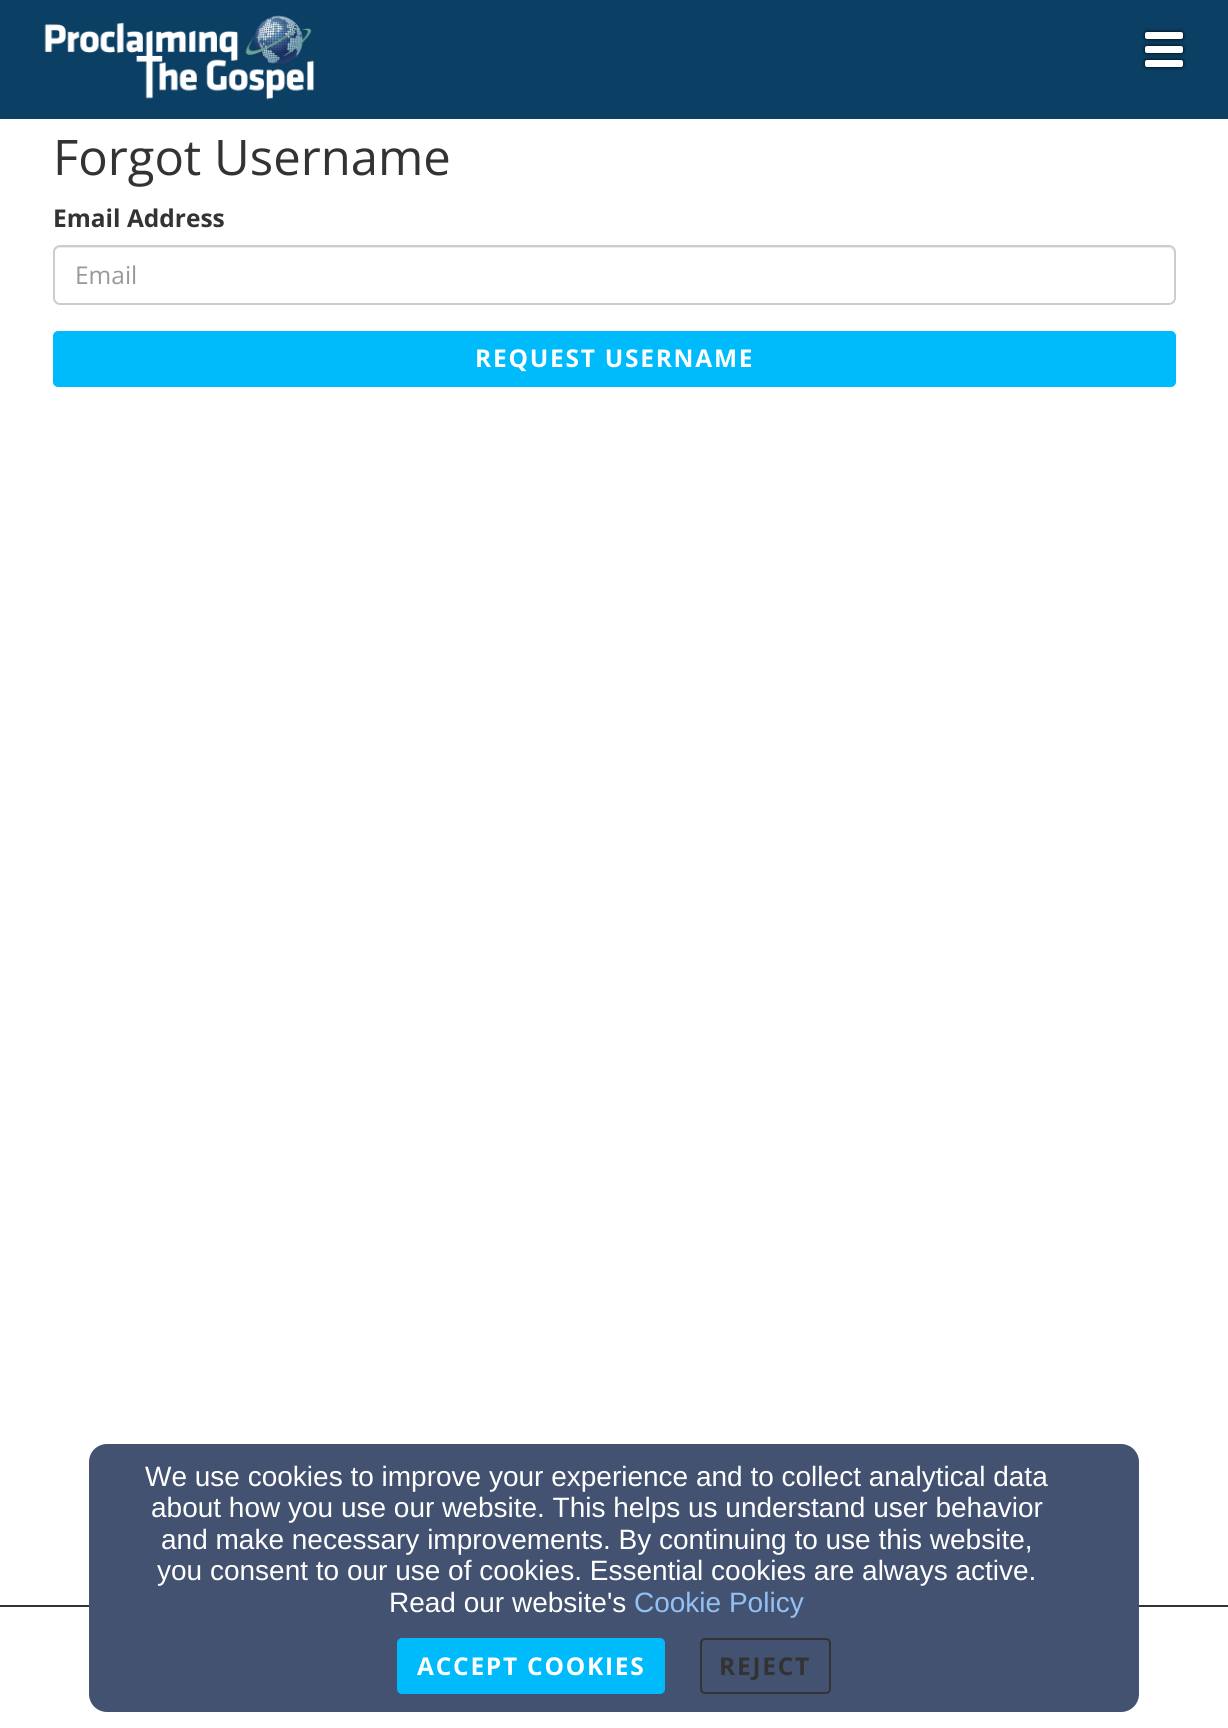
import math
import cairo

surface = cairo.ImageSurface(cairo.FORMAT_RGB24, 1228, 1728)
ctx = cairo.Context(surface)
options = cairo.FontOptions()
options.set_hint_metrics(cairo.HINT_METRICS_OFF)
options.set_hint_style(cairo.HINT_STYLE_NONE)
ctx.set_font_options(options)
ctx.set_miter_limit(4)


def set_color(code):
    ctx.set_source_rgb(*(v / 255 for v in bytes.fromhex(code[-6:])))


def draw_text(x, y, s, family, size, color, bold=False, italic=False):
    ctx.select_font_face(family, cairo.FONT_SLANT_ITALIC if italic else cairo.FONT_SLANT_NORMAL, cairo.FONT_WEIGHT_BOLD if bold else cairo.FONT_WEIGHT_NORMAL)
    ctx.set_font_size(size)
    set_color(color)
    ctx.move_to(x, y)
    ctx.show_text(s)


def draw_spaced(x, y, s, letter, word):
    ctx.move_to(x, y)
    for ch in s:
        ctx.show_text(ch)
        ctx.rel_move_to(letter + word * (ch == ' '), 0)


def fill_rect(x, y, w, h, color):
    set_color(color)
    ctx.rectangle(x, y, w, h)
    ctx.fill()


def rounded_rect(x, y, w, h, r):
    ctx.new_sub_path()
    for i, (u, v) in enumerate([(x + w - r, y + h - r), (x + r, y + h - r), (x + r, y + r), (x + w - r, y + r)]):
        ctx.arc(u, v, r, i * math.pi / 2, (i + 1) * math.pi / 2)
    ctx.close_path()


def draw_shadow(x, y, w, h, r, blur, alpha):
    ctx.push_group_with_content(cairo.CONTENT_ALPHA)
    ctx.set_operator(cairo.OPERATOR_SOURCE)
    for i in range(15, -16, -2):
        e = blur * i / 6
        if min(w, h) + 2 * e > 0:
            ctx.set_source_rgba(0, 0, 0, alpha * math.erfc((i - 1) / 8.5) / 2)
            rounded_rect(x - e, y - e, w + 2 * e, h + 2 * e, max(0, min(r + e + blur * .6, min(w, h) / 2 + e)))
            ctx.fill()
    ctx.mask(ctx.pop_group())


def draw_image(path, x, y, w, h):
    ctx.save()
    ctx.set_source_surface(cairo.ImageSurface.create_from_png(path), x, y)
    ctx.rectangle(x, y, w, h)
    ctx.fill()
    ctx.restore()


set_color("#ffffff")
ctx.paint()
fill_rect(0, 0, 1228, 119, "#0b3f64")
draw_image("assets/img1.png", 44, 15, 271, 85)
set_color("#000000")
draw_shadow(1145, 32, 38, 7, 2, 2, 1)
set_color("#ffffff")
rounded_rect(1145, 32, 38, 7, 2)
ctx.fill()
set_color("#000000")
draw_shadow(1145, 46, 38, 7, 2, 2, 1)
set_color("#ffffff")
rounded_rect(1145, 46, 38, 7, 2)
ctx.fill()
set_color("#000000")
draw_shadow(1145, 60, 38, 7, 2, 2, 1)
set_color("#ffffff")
rounded_rect(1145, 60, 38, 7, 2)
ctx.fill()
draw_text(53, 175, "Forgot Username", "Open Sans", 49, "#333333")
draw_text(53, 227, "Email Address", "Open Sans", 24.5, "#333333", bold=True)
set_color("#ececec")
ctx.new_path()
ctx.move_to(60, 248)
ctx.line_to(1169, 248)
ctx.curve_to(1172, 248, 1174, 251, 1174, 254)
ctx.line_to(1174, 252)
ctx.curve_to(1174, 249, 1172, 247, 1169, 247)
ctx.line_to(59, 247)
ctx.curve_to(56, 247, 54, 249, 54, 252)
ctx.line_to(54, 254)
ctx.curve_to(54, 251, 57, 248, 60, 248)
ctx.close_path()
ctx.fill()
rounded_rect(54, 246, 1121, 58, 6)
set_color("#cccccc")
ctx.stroke()
draw_text(75, 284, "Email", "Open Sans", 24.5, "#999999")
set_color("#00bbfc")
rounded_rect(54, 332, 1121, 54, 4)
ctx.fill_preserve()
ctx.stroke()
ctx.select_font_face("Open Sans", cairo.FONT_SLANT_NORMAL, cairo.FONT_WEIGHT_BOLD)
set_color("#ffffff")
draw_spaced(475, 367, "REQUEST USERNAME", 1.75, 0)
fill_rect(0, 1605, 1228, 2, "#333333")
set_color("#435270")
rounded_rect(89, 1444, 1050, 268, 18)
ctx.fill()
draw_text(145, 1486, "We use cookies to improve your experience and to collect analytical data", "Liberation Sans", 28, "#ffffff")
draw_text(151, 1517, "about how you use our website. This helps us understand user behavior", "Liberation Sans", 28, "#ffffff")
draw_text(161, 1549, "and make necessary improvements. By continuing to use this website,", "Liberation Sans", 28, "#ffffff")
draw_text(157, 1580, "you consent to our use of cookies. Essential cookies are always active.", "Liberation Sans", 28, "#ffffff")
draw_text(389, 1612, "Read our website's", "Liberation Sans", 28, "#ffffff")
draw_text(634, 1612, "Cookie Policy", "Liberation Sans", 28, "#94c0f3")
set_color("#00bbfc")
rounded_rect(398, 1639, 266, 54, 4)
ctx.fill_preserve()
ctx.stroke()
ctx.select_font_face("Open Sans", cairo.FONT_SLANT_NORMAL, cairo.FONT_WEIGHT_BOLD)
ctx.set_font_size(24.5)
set_color("#ffffff")
draw_spaced(417, 1675, "ACCEPT COOKIES", 1.75, 0)
rounded_rect(701, 1639, 129, 54, 4)
set_color("#333333")
ctx.stroke()
draw_spaced(719, 1675, "REJECT", 1.75, 0)
surface.write_to_png("output.png")
